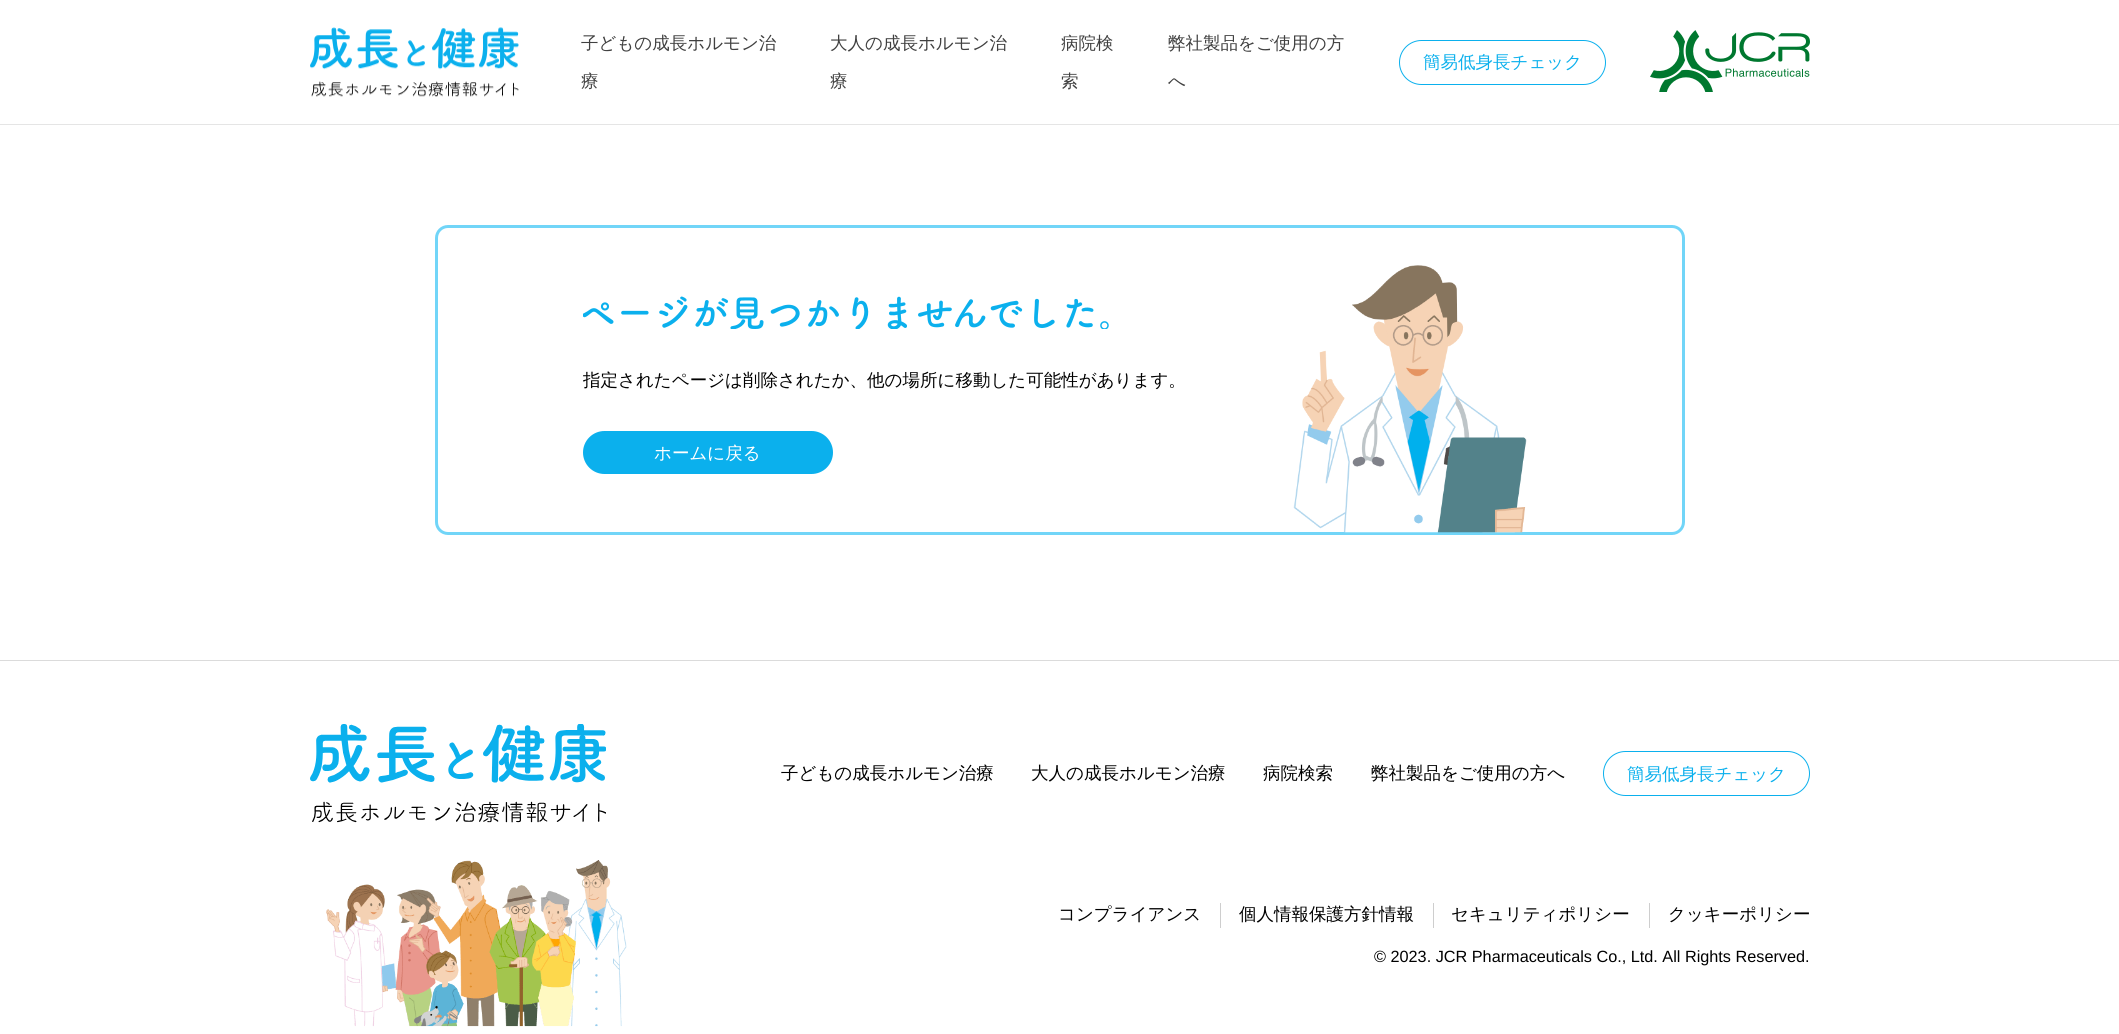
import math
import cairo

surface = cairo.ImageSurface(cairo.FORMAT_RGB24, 2119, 1034)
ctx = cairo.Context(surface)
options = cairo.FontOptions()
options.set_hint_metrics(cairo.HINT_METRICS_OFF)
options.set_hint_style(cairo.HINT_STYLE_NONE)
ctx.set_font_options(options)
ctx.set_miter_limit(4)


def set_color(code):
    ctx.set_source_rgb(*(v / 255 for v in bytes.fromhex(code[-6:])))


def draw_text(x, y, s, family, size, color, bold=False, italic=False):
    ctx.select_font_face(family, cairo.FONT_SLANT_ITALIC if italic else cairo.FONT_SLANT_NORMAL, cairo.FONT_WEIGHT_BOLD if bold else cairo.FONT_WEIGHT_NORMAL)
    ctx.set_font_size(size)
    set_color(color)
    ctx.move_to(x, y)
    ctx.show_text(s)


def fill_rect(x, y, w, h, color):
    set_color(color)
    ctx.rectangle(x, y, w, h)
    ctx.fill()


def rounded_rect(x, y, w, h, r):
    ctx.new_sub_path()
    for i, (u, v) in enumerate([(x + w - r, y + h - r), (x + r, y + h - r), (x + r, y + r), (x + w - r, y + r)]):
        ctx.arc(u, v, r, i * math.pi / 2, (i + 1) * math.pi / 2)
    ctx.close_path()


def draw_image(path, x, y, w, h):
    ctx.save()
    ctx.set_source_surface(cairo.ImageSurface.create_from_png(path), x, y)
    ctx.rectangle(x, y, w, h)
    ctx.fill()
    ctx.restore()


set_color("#ffffff")
ctx.paint()
fill_rect(0, 124, 2119, 1, "#e5e5e5")
draw_image("assets/img1.png", 310, 27, 209, 70)
draw_text(581, 49, "子どもの成長ホルモン治", "WenQuanYi Zen Hei Medium", 17.5, "#404040")
draw_text(581, 87, "療", "WenQuanYi Zen Hei Medium", 17.5, "#404040")
draw_text(830, 49, "大人の成長ホルモン治", "WenQuanYi Zen Hei Medium", 17.5, "#404040")
draw_text(830, 87, "療", "WenQuanYi Zen Hei Medium", 17.5, "#404040")
draw_text(1061, 49, "病院検", "WenQuanYi Zen Hei Medium", 17.5, "#404040")
draw_text(1061, 87, "索", "WenQuanYi Zen Hei Medium", 17.5, "#404040")
draw_text(1168, 49, "弊社製品をご使用の方", "WenQuanYi Zen Hei Medium", 17.5, "#404040")
draw_text(1168, 87, "へ", "WenQuanYi Zen Hei Medium", 17.5, "#404040")
rounded_rect(1399.5, 40.5, 206, 44, 22)
set_color("#0bb0ed")
ctx.set_line_width(1)
ctx.stroke()
draw_text(1423, 68, "簡易低身長チェック", "WenQuanYi Zen Hei Medium", 17.5, "#0bb0ed")
draw_image("assets/img2.png", 1650, 30, 160, 62)
rounded_rect(436.5, 226.5, 1247, 307, 11.5)
set_color("#71d5f8")
ctx.set_line_width(3)
ctx.stroke()
draw_image("assets/img3.png", 583, 296, 526, 33)
draw_text(583, 386, "指定されたページは削除されたか、他の場所に移動した可能性があります。", "WenQuanYi Zen Hei Medium", 17.5, "#000000")
set_color("#0bb0ed")
rounded_rect(583, 431, 250, 43, 21.5)
ctx.fill()
draw_text(654, 459, "ホームに戻る", "WenQuanYi Zen Hei Medium", 17.5, "#ffffff")
draw_image("assets/img4.png", 1293, 265, 234, 268)
fill_rect(0, 660, 2119, 1, "#dbdbdb")
draw_image("assets/img5.png", 310, 724, 296, 99)
draw_text(781, 779, "子どもの成長ホルモン治療", "WenQuanYi Zen Hei Medium", 17.5, "#000000")
draw_text(1031, 779, "大人の成長ホルモン治療", "WenQuanYi Zen Hei Medium", 17.5, "#000000")
draw_text(1263, 779, "病院検索", "WenQuanYi Zen Hei Medium", 17.5, "#000000")
draw_text(1371, 779, "弊社製品をご使用の方へ", "WenQuanYi Zen Hei Medium", 17.5, "#000000")
rounded_rect(1603.5, 751.5, 206, 44, 22)
set_color("#0bb0ed")
ctx.set_line_width(1)
ctx.stroke()
draw_text(1627, 780, "簡易低身長チェック", "WenQuanYi Zen Hei Medium", 17.5, "#0bb0ed")
draw_image("assets/img6.png", 326, 860, 301, 167)
draw_text(1058, 920, "コンプライアンス", "WenQuanYi Zen Hei Medium", 17.5, "#000000")
fill_rect(1220, 903, 1, 25, "#cecece")
draw_text(1239, 920, "個人情報保護方針情報", "WenQuanYi Zen Hei Medium", 17.5, "#000000")
fill_rect(1433, 903, 1, 25, "#cecece")
draw_text(1451, 920, "セキュリティポリシー", "WenQuanYi Zen Hei Medium", 17.5, "#000000")
fill_rect(1649, 903, 1, 25, "#cecece")
draw_text(1668, 920, "クッキーポリシー", "WenQuanYi Zen Hei Medium", 17.5, "#000000")
draw_text(1374, 962, "© 2023. JCR Pharmaceuticals Co., Ltd. All Rights Reserved.", "Liberation Sans", 16.25, "#000000")
surface.write_to_png("output.png")
